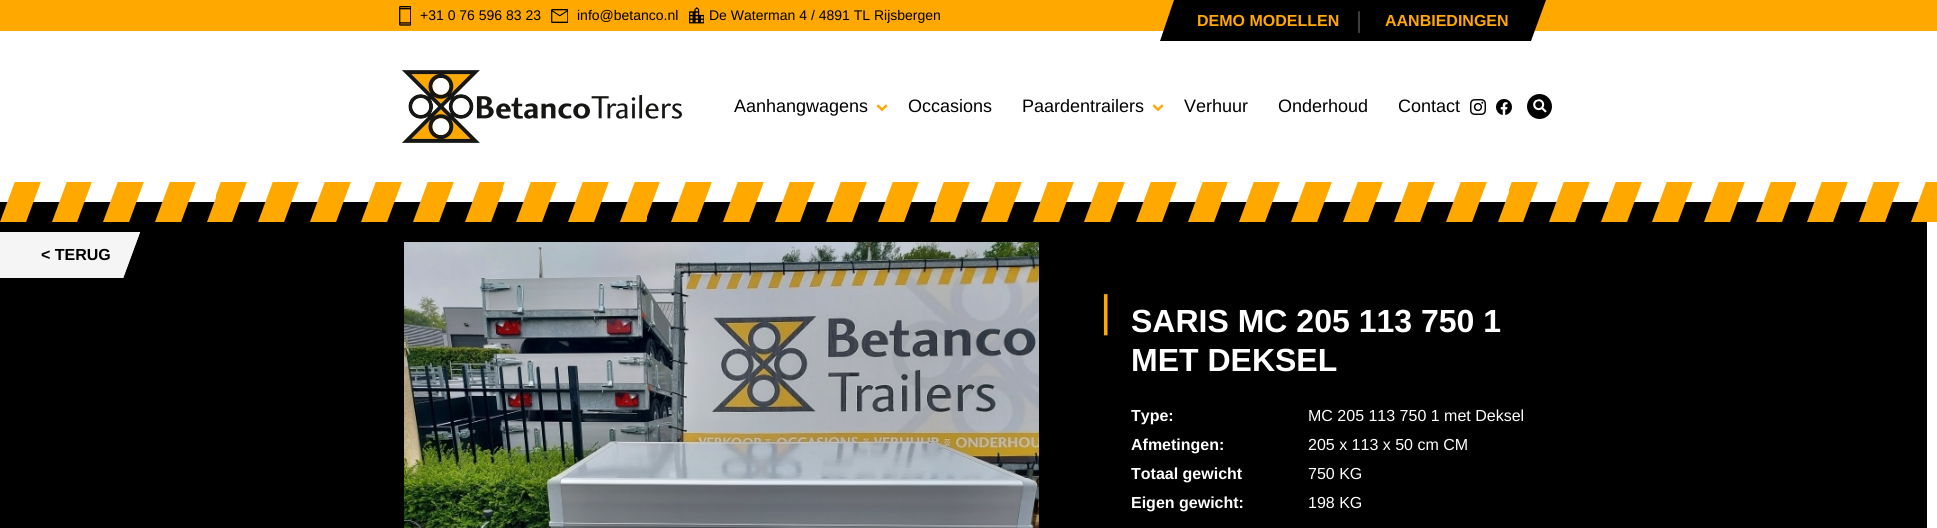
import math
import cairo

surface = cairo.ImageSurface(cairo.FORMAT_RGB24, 1937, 528)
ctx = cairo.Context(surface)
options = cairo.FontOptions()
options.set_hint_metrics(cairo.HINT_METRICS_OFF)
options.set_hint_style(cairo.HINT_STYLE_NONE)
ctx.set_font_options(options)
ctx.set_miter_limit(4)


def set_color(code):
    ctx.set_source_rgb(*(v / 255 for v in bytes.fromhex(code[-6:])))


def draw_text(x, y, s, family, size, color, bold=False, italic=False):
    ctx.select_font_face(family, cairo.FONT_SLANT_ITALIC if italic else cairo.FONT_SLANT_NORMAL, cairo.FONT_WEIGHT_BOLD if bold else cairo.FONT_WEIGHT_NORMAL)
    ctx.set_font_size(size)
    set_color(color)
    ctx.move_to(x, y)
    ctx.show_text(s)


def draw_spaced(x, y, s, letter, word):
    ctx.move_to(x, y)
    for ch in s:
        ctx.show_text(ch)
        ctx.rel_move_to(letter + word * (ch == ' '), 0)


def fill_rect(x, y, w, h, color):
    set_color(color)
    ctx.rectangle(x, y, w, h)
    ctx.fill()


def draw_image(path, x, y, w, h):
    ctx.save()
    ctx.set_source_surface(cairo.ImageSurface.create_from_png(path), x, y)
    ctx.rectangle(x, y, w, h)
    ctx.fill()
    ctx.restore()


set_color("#ffffff")
ctx.paint()
fill_rect(0, 0, 1937, 31, "#ffa900")
draw_image("assets/img1.png", 399, 6, 12, 20)
draw_text(420, 20, "+31 0 76 596 83 23", "Liberation Sans", 14, "#000000")
draw_image("assets/img2.png", 551, 9, 17, 14)
draw_text(577, 20, "info@betanco.nl", "Liberation Sans", 14, "#000000")
draw_image("assets/img3.png", 689, 7, 15, 17)
draw_text(709, 20, "De Waterman 4 / 4891 TL Rijsbergen", "Liberation Sans", 14, "#000000")
ctx.new_path()
ctx.move_to(1174, 0)
ctx.line_to(1546, 0)
ctx.line_to(1531, 41)
ctx.line_to(1160, 41)
ctx.close_path()
ctx.fill()
draw_text(1197, 26, "DEMO MODELLEN", "Liberation Sans", 16, "#ffa900", bold=True)
draw_text(1356, 28, "|", "Liberation Sans", 23, "#434343")
draw_text(1385, 26, "AANBIEDINGEN", "Liberation Sans", 16, "#ffa900", bold=True)
draw_image("assets/img4.png", 402, 70, 280, 73)
draw_text(734, 112, "Aanhangwagens", "Liberation Sans", 18, "#000000")
draw_image("assets/img5.png", 876, 104, 12, 8)
draw_text(908, 112, "Occasions", "Liberation Sans", 18, "#000000")
draw_text(1022, 112, "Paardentrailers", "Liberation Sans", 18, "#000000")
draw_image("assets/img5.png", 1152, 104, 12, 8)
draw_text(1184, 112, "Verhuur", "Liberation Sans", 18, "#000000")
draw_text(1278, 112, "Onderhoud", "Liberation Sans", 18, "#000000")
draw_text(1398, 112, "Contact", "Liberation Sans", 18, "#000000")
draw_image("assets/img6.png", 1470, 99, 16, 16)
draw_image("assets/img7.png", 1496, 99, 16, 16)
ctx.arc(1539.5, 106.5, 12.5, 0, 2 * math.pi)
ctx.fill()
draw_image("assets/img8.png", 1533, 99, 14, 14)
fill_rect(0, 202, 1927, 326, "#000000")
draw_image("assets/img9.png", 0, 182, 1937, 40)
set_color("#f5f5f5")
ctx.new_path()
ctx.move_to(-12, 232)
ctx.line_to(140, 232)
ctx.line_to(123, 278)
ctx.line_to(-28, 278)
ctx.close_path()
ctx.fill()
ctx.new_path()
ctx.move_to(-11.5, 232.5)
ctx.line_to(139.5, 232.5)
ctx.line_to(123, 277.5)
ctx.line_to(-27.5, 277.5)
ctx.close_path()
ctx.set_line_width(1)
ctx.stroke()
draw_text(41, 260, "< TERUG", "Liberation Sans", 16, "#000000", bold=True)
draw_image("assets/img10.png", 404, 242, 635, 286)
ctx.select_font_face("Liberation Sans")
ctx.set_font_size(44)
set_color("#ffa900")
draw_spaced(1100, 326, "|", -1, 0)
draw_text(1131, 332, "SARIS MC 205 113 750 1", "Liberation Sans", 32, "#ffffff", bold=True)
draw_text(1131, 371, "MET DEKSEL", "Liberation Sans", 32, "#ffffff", bold=True)
draw_text(1131, 421, "Type:", "Liberation Sans", 16, "#ffffff", bold=True)
draw_text(1308, 421, "MC 205 113 750 1 met Deksel", "Liberation Sans", 16, "#ffffff")
draw_text(1131, 450, "Afmetingen:", "Liberation Sans", 16, "#ffffff", bold=True)
draw_text(1308, 450, "205 x 113 x 50 cm CM", "Liberation Sans", 16, "#ffffff")
draw_text(1131, 479, "Totaal gewicht", "Liberation Sans", 16, "#ffffff", bold=True)
draw_text(1308, 479, "750 KG", "Liberation Sans", 16, "#ffffff")
draw_text(1131, 508, "Eigen gewicht:", "Liberation Sans", 16, "#ffffff", bold=True)
draw_text(1308, 508, "198 KG", "Liberation Sans", 16, "#ffffff")
surface.write_to_png("output.png")
